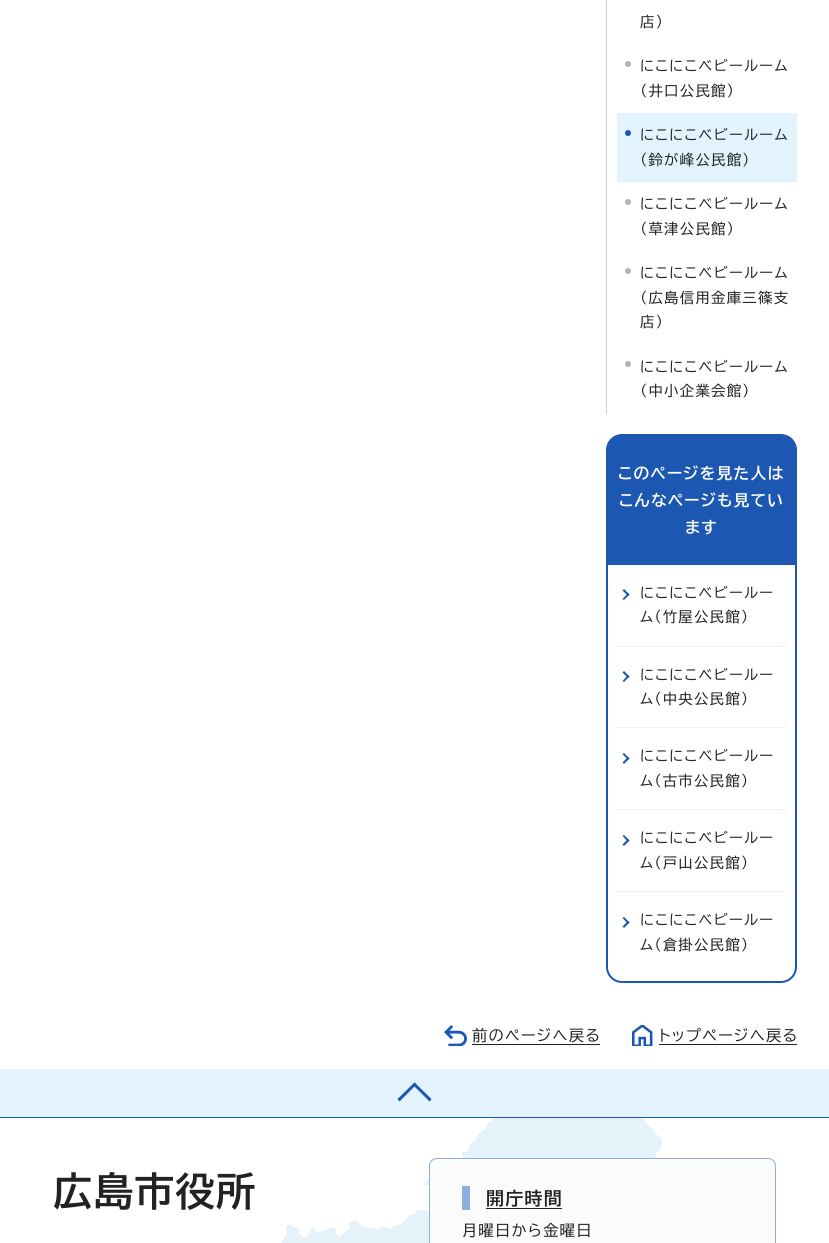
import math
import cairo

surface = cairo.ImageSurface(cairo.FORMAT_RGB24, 829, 1243)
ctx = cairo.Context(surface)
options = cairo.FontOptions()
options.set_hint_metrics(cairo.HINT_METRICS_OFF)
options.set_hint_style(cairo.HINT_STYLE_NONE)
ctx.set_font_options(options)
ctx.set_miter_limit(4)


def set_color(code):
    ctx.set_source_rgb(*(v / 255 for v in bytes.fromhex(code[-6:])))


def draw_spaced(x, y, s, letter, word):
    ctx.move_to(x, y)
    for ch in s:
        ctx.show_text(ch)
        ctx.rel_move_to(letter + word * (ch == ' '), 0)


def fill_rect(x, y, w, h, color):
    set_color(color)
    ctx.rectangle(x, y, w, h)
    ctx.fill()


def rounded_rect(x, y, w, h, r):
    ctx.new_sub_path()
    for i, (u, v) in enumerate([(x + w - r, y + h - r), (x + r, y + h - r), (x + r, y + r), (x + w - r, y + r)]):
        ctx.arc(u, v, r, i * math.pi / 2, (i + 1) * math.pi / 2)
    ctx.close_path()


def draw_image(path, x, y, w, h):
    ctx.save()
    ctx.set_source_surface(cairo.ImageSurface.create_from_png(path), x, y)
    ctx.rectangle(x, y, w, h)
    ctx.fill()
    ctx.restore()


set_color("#ffffff")
ctx.paint()
fill_rect(606, 0, 1, 414, "#cccccc")
ctx.select_font_face("BIZ UDPGothic")
ctx.set_font_size(14.4)
set_color("#222222")
draw_spaced(640, 27, "店）", 1.25, 0)
set_color("#b4b4b4")
ctx.new_path()
ctx.arc(628, 64, 3, 0, 2 * math.pi)
ctx.fill()
set_color("#222222")
draw_spaced(640, 71, "にこにこベビールーム", 1.25, 0)
draw_spaced(640, 96, "（井口公民館）", 1.25, 0)
fill_rect(617, 113, 180, 69, "#e2f3fd")
set_color("#1c58b2")
ctx.new_path()
ctx.arc(628, 133, 3, 0, 2 * math.pi)
ctx.fill()
set_color("#222222")
draw_spaced(640, 140, "にこにこベビールーム", 1.25, 0)
draw_spaced(640, 165, "（鈴が峰公民館）", 1.25, 0)
set_color("#b4b4b4")
ctx.new_path()
ctx.arc(628, 202, 3, 0, 2 * math.pi)
ctx.fill()
set_color("#222222")
draw_spaced(640, 209, "にこにこベビールーム", 1.25, 0)
draw_spaced(640, 234, "（草津公民館）", 1.25, 0)
set_color("#b4b4b4")
ctx.new_path()
ctx.arc(628, 271, 3, 0, 2 * math.pi)
ctx.fill()
set_color("#222222")
draw_spaced(640, 278, "にこにこベビールーム", 1.25, 0)
draw_spaced(640, 303, "（広島信用金庫三篠支", 1.25, 0)
draw_spaced(640, 327, "店）", 1.25, 0)
set_color("#b4b4b4")
ctx.new_path()
ctx.arc(628, 364, 3, 0, 2 * math.pi)
ctx.fill()
set_color("#222222")
draw_spaced(640, 372, "にこにこベビールーム", 1.25, 0)
draw_spaced(640, 396, "（中小企業会館）", 1.25, 0)
rounded_rect(607, 435, 189, 547, 15)
set_color("#1c58b2")
ctx.stroke()
ctx.new_path()
ctx.move_to(620, 436)
ctx.line_to(783, 436)
ctx.curve_to(789.5, 436, 795, 441.5, 795, 448)
ctx.line_to(795, 565)
ctx.line_to(608, 565)
ctx.line_to(608, 448)
ctx.curve_to(608, 441.5, 613.5, 436, 620, 436)
ctx.close_path()
ctx.fill()
ctx.select_font_face("BIZ UDPGothic", cairo.FONT_SLANT_NORMAL, cairo.FONT_WEIGHT_BOLD)
ctx.set_font_size(15.75)
set_color("#ffffff")
draw_spaced(618, 479, "このページを見た人は", 1.25, 0)
draw_spaced(619, 506, "こんなページも見てい", 1.25, 0)
draw_spaced(685, 533, "ます", 1.25, 0)
set_color("#1c58b2")
ctx.new_path()
ctx.move_to(624, 589)
ctx.line_to(629.5, 594.5)
ctx.line_to(628, 596)
ctx.line_to(622.5, 590.5)
ctx.close_path()
ctx.fill()
ctx.new_path()
ctx.move_to(628, 593)
ctx.line_to(629.5, 594.5)
ctx.line_to(624, 600)
ctx.line_to(622.5, 599)
ctx.close_path()
ctx.fill()
ctx.select_font_face("BIZ UDPGothic")
ctx.set_font_size(14.4)
set_color("#222222")
draw_spaced(640, 598, "にこにこベビールー", 1.25, 0)
draw_spaced(640, 622, "ム（竹屋公民館）", 1.25, 0)
fill_rect(616, 646, 171, 1, "#f0f1fa")
set_color("#1c58b2")
ctx.new_path()
ctx.move_to(624, 671)
ctx.line_to(629.5, 676.5)
ctx.line_to(628, 678)
ctx.line_to(622.5, 672.5)
ctx.close_path()
ctx.fill()
ctx.new_path()
ctx.move_to(628, 675)
ctx.line_to(629.5, 676.5)
ctx.line_to(624, 682)
ctx.line_to(622.5, 681)
ctx.close_path()
ctx.fill()
set_color("#222222")
draw_spaced(640, 680, "にこにこベビールー", 1.25, 0)
draw_spaced(640, 704, "ム（中央公民館）", 1.25, 0)
fill_rect(616, 727, 171, 1, "#f0f1fa")
set_color("#1c58b2")
ctx.new_path()
ctx.move_to(624, 753)
ctx.line_to(629.5, 758.5)
ctx.line_to(628, 760)
ctx.line_to(622.5, 754)
ctx.close_path()
ctx.fill()
ctx.new_path()
ctx.move_to(628, 757)
ctx.line_to(629.5, 758.5)
ctx.line_to(624, 764)
ctx.line_to(622.5, 762.5)
ctx.close_path()
ctx.fill()
set_color("#222222")
draw_spaced(640, 761, "にこにこベビールー", 1.25, 0)
draw_spaced(640, 786, "ム（古市公民館）", 1.25, 0)
fill_rect(616, 809, 171, 1, "#f0f1fa")
set_color("#1c58b2")
ctx.new_path()
ctx.move_to(624, 835)
ctx.line_to(629.5, 840.5)
ctx.line_to(628, 842)
ctx.line_to(622.5, 836)
ctx.close_path()
ctx.fill()
ctx.new_path()
ctx.move_to(628, 839)
ctx.line_to(629.5, 840.5)
ctx.line_to(624, 846)
ctx.line_to(622.5, 844.5)
ctx.close_path()
ctx.fill()
set_color("#222222")
draw_spaced(640, 843, "にこにこベビールー", 1.25, 0)
draw_spaced(640, 868, "ム（戸山公民館）", 1.25, 0)
fill_rect(616, 891, 171, 1, "#f0f1fa")
set_color("#1c58b2")
ctx.new_path()
ctx.move_to(624, 917)
ctx.line_to(629.5, 922.5)
ctx.line_to(628, 924)
ctx.line_to(622.5, 918)
ctx.close_path()
ctx.fill()
ctx.new_path()
ctx.move_to(628, 921)
ctx.line_to(629.5, 922.5)
ctx.line_to(624, 928)
ctx.line_to(622.5, 926.5)
ctx.close_path()
ctx.fill()
set_color("#222222")
draw_spaced(640, 925, "にこにこベビールー", 1.25, 0)
draw_spaced(640, 950, "ム（倉掛公民館）", 1.25, 0)
draw_image("assets/img1.png", 444, 1025, 23, 21)
ctx.set_font_size(15.25)
draw_spaced(472, 1041, "前のページへ戻る", 1.25, 0)
fill_rect(472, 1044, 128, 1, "#222222")
draw_image("assets/img2.png", 632, 1025, 21, 21)
draw_spaced(659, 1041, "トップページへ戻る", 1.25, 0)
fill_rect(659, 1044, 138, 1, "#222222")
fill_rect(0, 1117, 829, 1, "#1c58b2")
fill_rect(0, 1069, 829, 48, "#e2f3fd")
set_color("#1c58b2")
ctx.new_path()
ctx.move_to(397.5, 1099)
ctx.line_to(414.5, 1082.5)
ctx.line_to(416.5, 1084.5)
ctx.line_to(399.5, 1101.5)
ctx.close_path()
ctx.fill()
ctx.new_path()
ctx.move_to(412.5, 1084.5)
ctx.line_to(414.5, 1082.5)
ctx.line_to(431.5, 1099)
ctx.line_to(429.5, 1101.5)
ctx.close_path()
ctx.fill()
draw_image("assets/img3.png", 281, 1118, 381, 125)
ctx.select_font_face("BIZ UDPGothic", cairo.FONT_SLANT_NORMAL, cairo.FONT_WEIGHT_BOLD)
ctx.set_font_size(39.5)
set_color("#222222")
draw_spaced(53, 1206, "広島市役所", 1.25, 0)
set_color("#fbfbfb")
rounded_rect(429.5, 1158.5, 346, 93, 7.5)
ctx.fill_preserve()
set_color("#8cb0dd")
ctx.set_line_width(1)
ctx.stroke()
fill_rect(462, 1186, 8, 24, "#8cb0dd")
ctx.set_font_size(18)
set_color("#222222")
draw_spaced(486, 1205, "開庁時間", 1.25, 0)
fill_rect(486, 1208, 76, 1, "#222222")
ctx.select_font_face("BIZ UDPGothic")
ctx.set_font_size(15.25)
draw_spaced(462, 1236, "月曜日から金曜日", 1.25, 0)
surface.write_to_png("output.png")
